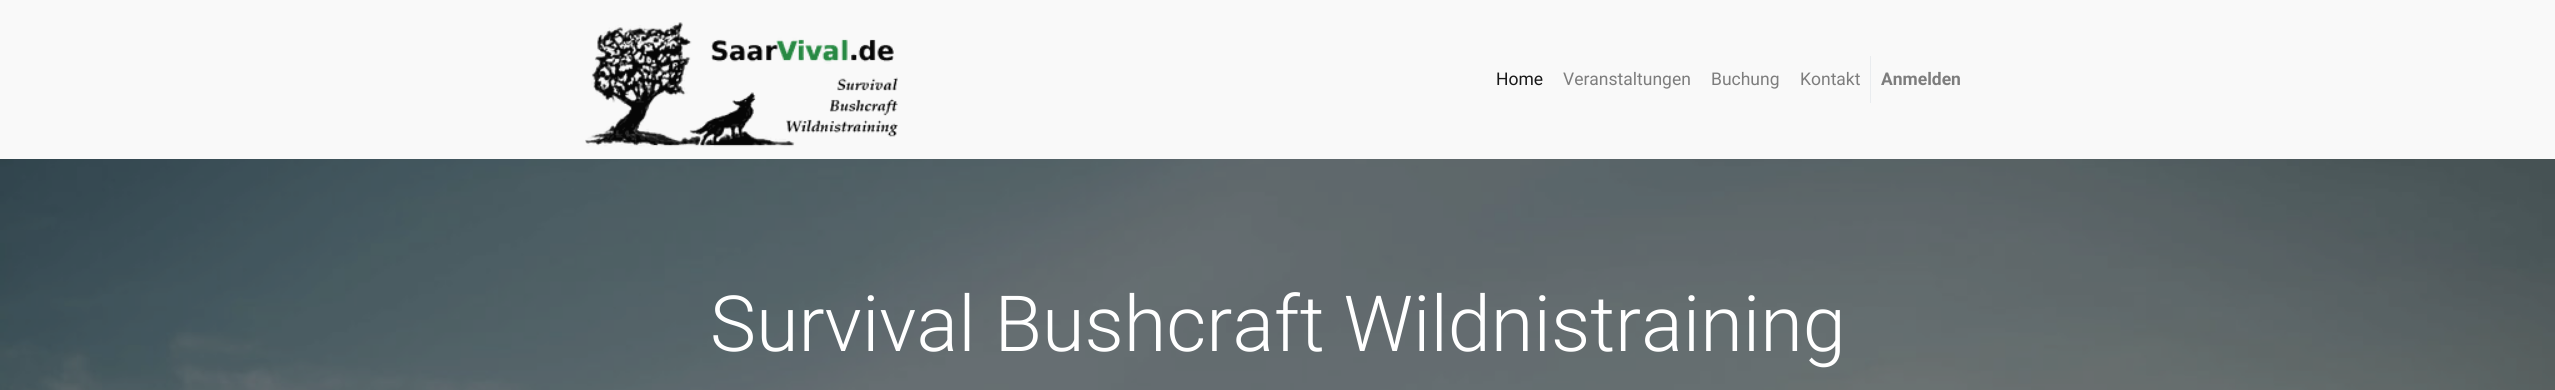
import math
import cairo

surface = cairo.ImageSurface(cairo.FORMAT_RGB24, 2555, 390)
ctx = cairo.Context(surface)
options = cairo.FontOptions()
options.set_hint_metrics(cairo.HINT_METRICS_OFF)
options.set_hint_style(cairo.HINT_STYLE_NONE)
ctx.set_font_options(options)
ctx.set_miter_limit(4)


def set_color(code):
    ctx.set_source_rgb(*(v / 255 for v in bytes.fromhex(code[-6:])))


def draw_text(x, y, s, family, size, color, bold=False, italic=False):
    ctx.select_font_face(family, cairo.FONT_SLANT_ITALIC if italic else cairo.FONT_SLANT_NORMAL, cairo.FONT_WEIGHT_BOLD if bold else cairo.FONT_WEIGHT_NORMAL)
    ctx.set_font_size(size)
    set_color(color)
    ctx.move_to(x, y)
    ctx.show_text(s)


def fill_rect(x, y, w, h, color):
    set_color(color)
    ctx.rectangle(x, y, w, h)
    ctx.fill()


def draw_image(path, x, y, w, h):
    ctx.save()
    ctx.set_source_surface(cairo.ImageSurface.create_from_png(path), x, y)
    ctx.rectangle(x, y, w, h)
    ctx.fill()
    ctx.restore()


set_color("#ffffff")
ctx.paint()
fill_rect(0, 0, 2555, 159, "#f9f9f9")
draw_image("assets/img1.png", 585, 22, 313, 125)
draw_text(1496, 85, "Home", "Roboto", 17.5, "#191919")
draw_text(1563, 85, "Veranstaltungen", "Roboto", 17.5, "#7d7d7d")
draw_text(1711, 85, "Buchung", "Roboto", 17.5, "#7d7d7d")
draw_text(1800, 85, "Kontakt", "Roboto", 17.5, "#7d7d7d")
fill_rect(1870, 56, 1, 47, "#e9ecef")
draw_text(1881, 85, "Anmelden", "Roboto", 17.5, "#7d7d7d", bold=True)
draw_image("assets/img2.png", 0, 159, 2555, 231)
draw_text(710, 351, "Survival Bushcraft Wildnistraining", "Roboto Light", 77.5, "#ffffff")
surface.write_to_png("output.png")
